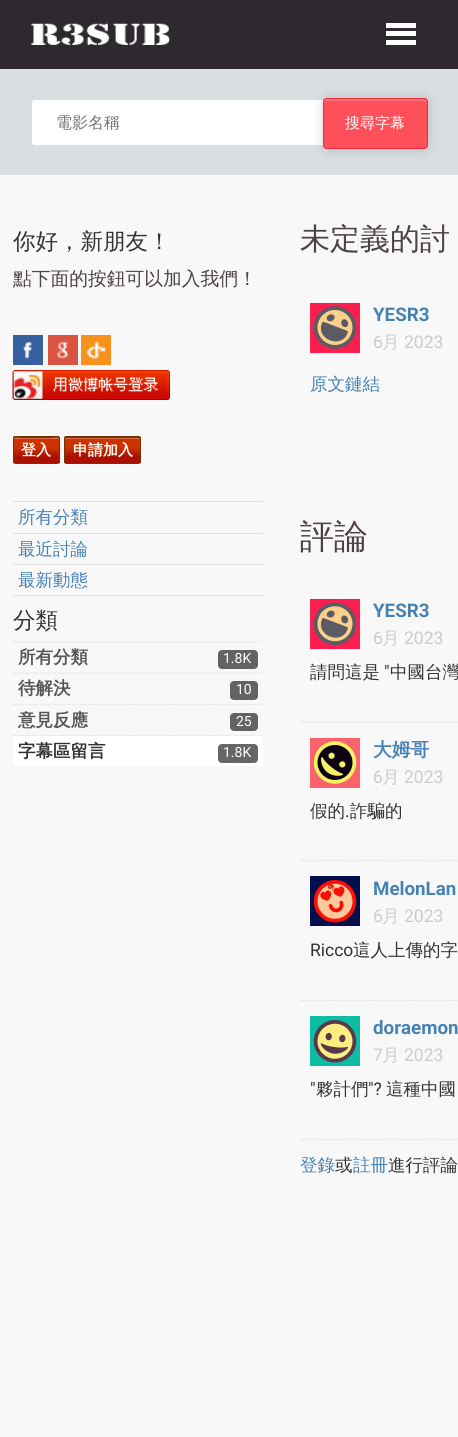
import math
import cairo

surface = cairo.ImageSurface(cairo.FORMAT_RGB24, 458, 1437)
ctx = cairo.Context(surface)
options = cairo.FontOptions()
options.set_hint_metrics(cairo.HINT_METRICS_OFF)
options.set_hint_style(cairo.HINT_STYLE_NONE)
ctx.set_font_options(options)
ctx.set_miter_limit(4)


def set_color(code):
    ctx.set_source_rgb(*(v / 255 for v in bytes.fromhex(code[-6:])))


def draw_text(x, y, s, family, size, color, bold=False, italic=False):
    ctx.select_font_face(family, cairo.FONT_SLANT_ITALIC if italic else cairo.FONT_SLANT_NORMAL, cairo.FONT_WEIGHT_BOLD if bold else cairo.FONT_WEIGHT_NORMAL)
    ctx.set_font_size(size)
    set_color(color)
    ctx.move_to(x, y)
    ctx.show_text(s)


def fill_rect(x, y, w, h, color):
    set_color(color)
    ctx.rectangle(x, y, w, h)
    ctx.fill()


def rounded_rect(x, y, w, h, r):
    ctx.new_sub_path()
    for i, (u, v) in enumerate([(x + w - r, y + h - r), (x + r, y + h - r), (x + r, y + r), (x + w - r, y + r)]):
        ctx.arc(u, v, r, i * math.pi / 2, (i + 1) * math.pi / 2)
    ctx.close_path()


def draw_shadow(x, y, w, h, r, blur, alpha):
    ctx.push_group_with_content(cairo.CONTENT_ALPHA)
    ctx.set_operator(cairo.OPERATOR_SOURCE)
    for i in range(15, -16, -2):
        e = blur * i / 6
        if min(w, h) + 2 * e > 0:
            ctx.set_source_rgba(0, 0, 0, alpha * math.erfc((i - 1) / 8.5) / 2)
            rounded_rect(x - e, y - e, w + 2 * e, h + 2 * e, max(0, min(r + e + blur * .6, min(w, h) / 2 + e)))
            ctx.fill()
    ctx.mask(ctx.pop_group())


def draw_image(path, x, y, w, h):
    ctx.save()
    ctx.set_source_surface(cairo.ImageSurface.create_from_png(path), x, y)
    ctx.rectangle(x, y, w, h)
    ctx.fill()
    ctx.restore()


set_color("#f8f8f8")
ctx.paint()
fill_rect(0, 0, 458, 69, "#2e292e")
draw_image("assets/img1.png", 31, 23, 139, 22)
fill_rect(386, 31, 30, 5, "#ffffff")
fill_rect(386, 23, 30, 5, "#ffffff")
fill_rect(386, 40, 30, 5, "#ffffff")
fill_rect(0, 69, 458, 106, "#dbdee1")
set_color("#ffffff")
rounded_rect(31.5, 99.5, 396, 46, 3.5)
ctx.fill_preserve()
set_color("#dbdee1")
ctx.set_line_width(1)
ctx.stroke()
draw_text(56, 128, "電影名稱", "WenQuanYi Zen Hei Medium", 16, "#757575")
set_color("#000000")
draw_shadow(323, 98, 105, 51, 4, 6, 0.16)
set_color("#fe505a")
rounded_rect(323, 98, 105, 51, 4)
ctx.fill()
set_color("#fe737b")
ctx.new_path()
ctx.move_to(326, 101)
ctx.line_to(424, 101)
ctx.curve_to(425, 101, 426, 102, 426, 104)
ctx.line_to(426, 102)
ctx.curve_to(426, 100, 425, 99, 424, 99)
ctx.line_to(326, 99)
ctx.curve_to(325, 99, 324, 100, 324, 102)
ctx.line_to(324, 104)
ctx.curve_to(324, 102, 325, 101, 326, 101)
ctx.close_path()
ctx.fill()
rounded_rect(323.5, 98.5, 104, 50, 3.5)
set_color("#f42a36")
ctx.stroke()
draw_text(345, 128, "搜尋字幕", "WenQuanYi Zen Hei Medium", 15, "#ffffff")
draw_text(13, 249, "你好，新朋友！", "WenQuanYi Zen Hei Medium", 22.5, "#333333")
draw_text(13, 285, "點下面的按鈕可以加入我們！", "WenQuanYi Zen Hei Medium", 18.75, "#4c4145")
fill_rect(13, 335, 30, 30, "#36609e")
draw_image("assets/img2.png", 23, 341, 9, 18)
fill_rect(48, 335, 30, 30, "#da5442")
draw_image("assets/img3.png", 56, 341, 12, 18)
fill_rect(81, 335, 30, 30, "#f7921c")
draw_image("assets/img4.png", 86, 341, 21, 18)
draw_image("assets/img5.png", 12, 370, 158, 30)
ctx.save()
rounded_rect(13, 436, 47, 28, 2.5)
ctx.clip()
gradient = cairo.LinearGradient(14, 438, 14, 413)
gradient.add_color_stop_rgba(0.25, 0.667, 0.067, 0, 1)
gradient.add_color_stop_rgba(0.63, 0.8, 0.2, 0, 1)
ctx.set_source(gradient)
ctx.rectangle(13, 436, 47, 2)
ctx.fill()
ctx.restore()
gradient = cairo.LinearGradient(14, 463, 14, 438)
gradient.add_color_stop_rgba(0.25, 0.667, 0.067, 0, 1)
gradient.add_color_stop_rgba(0.63, 0.8, 0.2, 0, 1)
ctx.set_source(gradient)
ctx.rectangle(13, 438, 47, 25)
ctx.fill()
set_color("#db704d")
ctx.new_path()
ctx.move_to(15, 439)
ctx.line_to(58, 439)
ctx.line_to(59, 440)
ctx.curve_to(59, 436, 55, 438, 51, 438)
ctx.line_to(22, 438)
ctx.curve_to(18, 438, 14, 436, 14, 440)
ctx.curve_to(14, 439, 14, 439, 15, 439)
ctx.close_path()
ctx.fill()
rounded_rect(13.5, 436.5, 46, 27, 2)
set_color("#763407")
ctx.stroke()
draw_text(21, 455, "登入", "WenQuanYi Zen Hei", 15, "#ffffff", bold=True)
ctx.save()
rounded_rect(64, 436, 77, 28, 2.5)
ctx.clip()
gradient = cairo.LinearGradient(65, 438, 65, 413)
gradient.add_color_stop_rgba(0.25, 0.667, 0.067, 0, 1)
gradient.add_color_stop_rgba(0.63, 0.8, 0.2, 0, 1)
ctx.set_source(gradient)
ctx.rectangle(64, 436, 77, 2)
ctx.fill()
ctx.restore()
gradient = cairo.LinearGradient(65, 463, 65, 438)
gradient.add_color_stop_rgba(0.25, 0.667, 0.067, 0, 1)
gradient.add_color_stop_rgba(0.63, 0.8, 0.2, 0, 1)
ctx.set_source(gradient)
ctx.rectangle(64, 438, 77, 25)
ctx.fill()
set_color("#db704d")
ctx.new_path()
ctx.move_to(66, 439)
ctx.line_to(139, 439)
ctx.line_to(140, 440)
ctx.line_to(139, 438)
ctx.line_to(66, 438)
ctx.curve_to(65, 438, 65, 439, 65, 440)
ctx.close_path()
ctx.fill()
rounded_rect(64.5, 436.5, 76, 27, 2)
set_color("#763407")
ctx.stroke()
draw_text(73, 455, "申請加入", "WenQuanYi Zen Hei", 15, "#ffffff", bold=True)
fill_rect(13, 501, 250, 1, "#dfdfdf")
fill_rect(13, 533, 250, 1, "#dfdfdf")
draw_text(18, 523, "所有分類", "WenQuanYi Zen Hei Medium", 17.5, "#4682b4")
fill_rect(13, 564, 250, 1, "#dfdfdf")
draw_text(18, 555, "最近討論", "WenQuanYi Zen Hei Medium", 17.5, "#4682b4")
fill_rect(13, 595, 250, 1, "#dfdfdf")
draw_text(18, 586, "最新動態", "WenQuanYi Zen Hei Medium", 17.5, "#4682b4")
draw_text(13, 628, "分類", "WenQuanYi Zen Hei Medium", 22.5, "#333333")
ctx.new_path()
ctx.move_to(12.5, 642)
ctx.line_to(262.5, 642)
set_color("#dfdfdf")
ctx.set_line_width(1.2)
ctx.set_dash([1.25, 1.25])
ctx.stroke()
ctx.new_path()
ctx.move_to(12.5, 673)
ctx.line_to(262.5, 673)
ctx.stroke()
draw_text(18, 663, "所有分類", "WenQuanYi Zen Hei", 17.5, "#555555", bold=True)
set_color("#636363")
rounded_rect(218, 650, 40, 19, 4)
ctx.fill()
draw_text(223, 663, "1.8K", "Roboto", 14, "#ffffff")
ctx.new_path()
ctx.move_to(12.5, 704.5)
ctx.line_to(262.5, 704.5)
set_color("#dfdfdf")
ctx.stroke()
draw_text(18, 694, "待解決", "WenQuanYi Zen Hei", 17.5, "#555555", bold=True)
set_color("#636363")
rounded_rect(230, 681, 28, 19, 4)
ctx.fill()
draw_text(236, 694, "10", "Roboto", 14, "#ffffff")
ctx.new_path()
ctx.move_to(12.5, 735.5)
ctx.line_to(262.5, 735.5)
set_color("#dfdfdf")
ctx.stroke()
draw_text(18, 726, "意見反應", "WenQuanYi Zen Hei", 17.5, "#555555", bold=True)
set_color("#636363")
rounded_rect(230, 713, 28, 18, 4)
ctx.fill()
draw_text(236, 726, "25", "Roboto", 14, "#ffffff")
fill_rect(13, 736, 250, 32, "#ffffff")
ctx.new_path()
ctx.move_to(12.5, 767)
ctx.line_to(262.5, 767)
set_color("#e6e6e6")
ctx.stroke()
draw_text(18, 757, "字幕區留言", "WenQuanYi Zen Hei", 17.5, "#333333", bold=True)
set_color("#666666")
rounded_rect(218, 744, 40, 19, 4)
ctx.fill()
draw_text(223, 757, "1.8K", "Roboto", 14, "#ffffff")
draw_text(300, 249, "未定義的討", "WenQuanYi Zen Hei Medium", 30, "#4c4145")
draw_image("assets/img6.png", 310, 303, 50, 50)
draw_text(373, 321, "YESR3", "Roboto", 18.75, "#4682b4", bold=True)
draw_text(373, 348, "6", "Roboto", 17.5, "#cccccc")
draw_text(382, 348, "月", "WenQuanYi Zen Hei Medium", 17.5, "#cccccc")
draw_text(404, 348, "2023", "Roboto", 17.5, "#cccccc")
draw_text(310, 390, "原文鏈結", "WenQuanYi Zen Hei Medium", 17.5, "#4682b4")
draw_text(300, 548, "評論", "WenQuanYi Zen Hei Medium", 34, "#4c4145")
ctx.new_path()
ctx.move_to(300, 722)
ctx.line_to(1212.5, 722)
set_color("#dfdfdf")
ctx.stroke()
draw_image("assets/img7.png", 310, 599, 50, 50)
draw_text(373, 617, "YESR3", "Roboto", 18.75, "#4682b4", bold=True)
draw_text(373, 644, "6", "Roboto", 17.5, "#cccccc")
draw_text(382, 644, "月", "WenQuanYi Zen Hei Medium", 17.5, "#cccccc")
draw_text(404, 644, "2023", "Roboto", 17.5, "#cccccc")
draw_text(310, 678, "請問這是", "WenQuanYi Zen Hei Medium", 17.5, "#333333")
draw_text(384, 678, "\"", "Roboto", 17.5, "#333333")
draw_text(390, 678, "中國台灣", "WenQuanYi Zen Hei Medium", 17.5, "#333333")
ctx.new_path()
ctx.move_to(300, 860.5)
ctx.line_to(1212.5, 860.5)
set_color("#dfdfdf")
ctx.stroke()
draw_image("assets/img8.png", 310, 738, 50, 50)
draw_text(373, 756, "大姆哥", "WenQuanYi Zen Hei", 18.75, "#4682b4", bold=True)
draw_text(373, 783, "6", "Roboto", 17.5, "#cccccc")
draw_text(382, 783, "月", "WenQuanYi Zen Hei Medium", 17.5, "#cccccc")
draw_text(404, 783, "2023", "Roboto", 17.5, "#cccccc")
draw_text(310, 817, "假的", "WenQuanYi Zen Hei Medium", 17.5, "#333333")
draw_text(345, 817, ".", "Roboto", 17.5, "#333333")
draw_text(350, 817, "詐騙的", "WenQuanYi Zen Hei Medium", 17.5, "#333333")
ctx.new_path()
ctx.move_to(300, 1000.5)
ctx.line_to(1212.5, 1000.5)
set_color("#dfdfdf")
ctx.stroke()
draw_image("assets/img9.png", 310, 876, 50, 50)
draw_text(373, 895, "MelonLan", "Roboto", 18.75, "#4682b4", bold=True)
draw_text(373, 922, "6", "Roboto", 17.5, "#cccccc")
draw_text(382, 922, "月", "WenQuanYi Zen Hei Medium", 17.5, "#cccccc")
draw_text(404, 922, "2023", "Roboto", 17.5, "#cccccc")
draw_text(310, 956, "Ricco", "Roboto", 17.5, "#333333")
draw_text(353, 956, "這人上傳的字", "WenQuanYi Zen Hei Medium", 17.5, "#333333")
ctx.new_path()
ctx.move_to(300, 1139.5)
ctx.line_to(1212.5, 1139.5)
set_color("#dfdfdf")
ctx.stroke()
draw_image("assets/img10.png", 310, 1016, 50, 50)
draw_text(373, 1034, "doraemon", "Roboto", 18.75, "#4682b4", bold=True)
draw_text(373, 1061, "7", "Roboto", 17.5, "#cccccc")
draw_text(382, 1061, "月", "WenQuanYi Zen Hei Medium", 17.5, "#cccccc")
draw_text(404, 1061, "2023", "Roboto", 17.5, "#cccccc")
draw_text(310, 1095, "\"", "Roboto", 17.5, "#333333")
draw_text(316, 1095, "夥計們", "WenQuanYi Zen Hei Medium", 17.5, "#333333")
draw_text(368, 1095, "\"?", "Roboto", 17.5, "#333333")
draw_text(386, 1095, "這種中國", "WenQuanYi Zen Hei Medium", 17.5, "#333333")
draw_text(300, 1171, "登錄", "WenQuanYi Zen Hei Medium", 17.5, "#4682b4")
draw_text(335, 1171, "或", "WenQuanYi Zen Hei Medium", 17.5, "#333333")
draw_text(353, 1171, "註冊", "WenQuanYi Zen Hei Medium", 17.5, "#4682b4")
draw_text(388, 1171, "進行評論", "WenQuanYi Zen Hei Medium", 17.5, "#333333")
surface.write_to_png("output.png")
